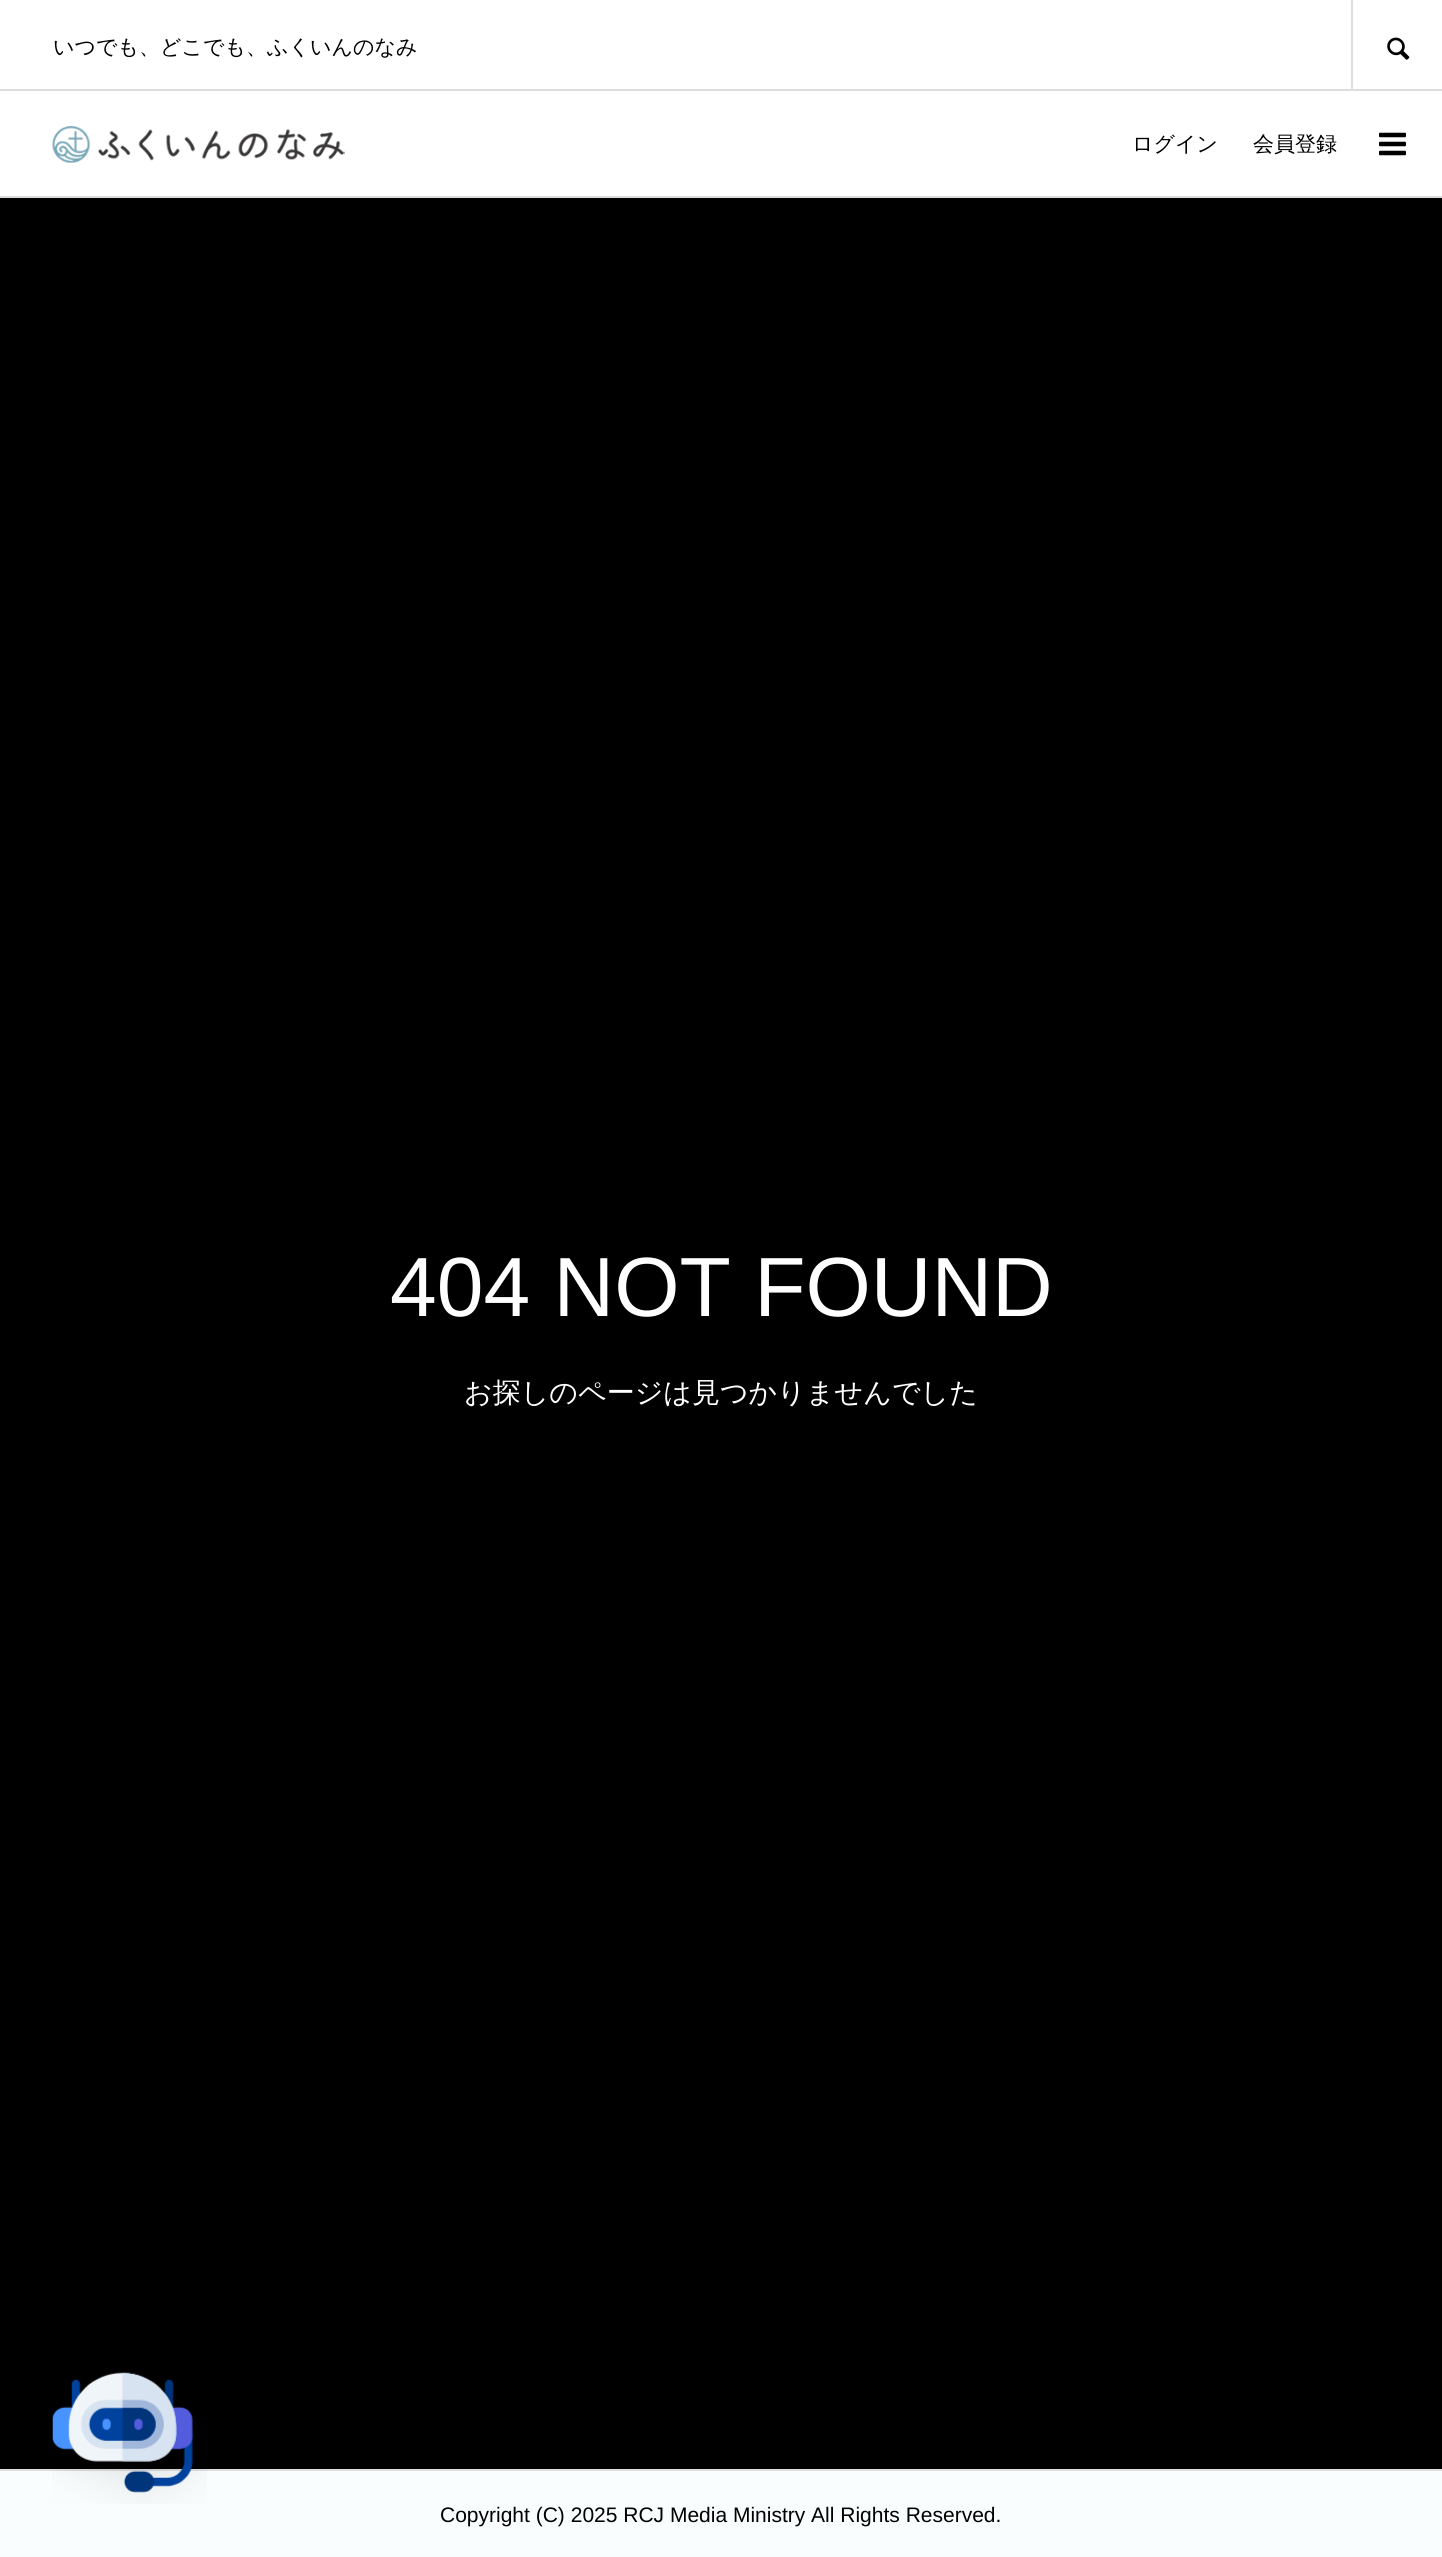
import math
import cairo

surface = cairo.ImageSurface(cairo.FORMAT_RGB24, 1442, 2557)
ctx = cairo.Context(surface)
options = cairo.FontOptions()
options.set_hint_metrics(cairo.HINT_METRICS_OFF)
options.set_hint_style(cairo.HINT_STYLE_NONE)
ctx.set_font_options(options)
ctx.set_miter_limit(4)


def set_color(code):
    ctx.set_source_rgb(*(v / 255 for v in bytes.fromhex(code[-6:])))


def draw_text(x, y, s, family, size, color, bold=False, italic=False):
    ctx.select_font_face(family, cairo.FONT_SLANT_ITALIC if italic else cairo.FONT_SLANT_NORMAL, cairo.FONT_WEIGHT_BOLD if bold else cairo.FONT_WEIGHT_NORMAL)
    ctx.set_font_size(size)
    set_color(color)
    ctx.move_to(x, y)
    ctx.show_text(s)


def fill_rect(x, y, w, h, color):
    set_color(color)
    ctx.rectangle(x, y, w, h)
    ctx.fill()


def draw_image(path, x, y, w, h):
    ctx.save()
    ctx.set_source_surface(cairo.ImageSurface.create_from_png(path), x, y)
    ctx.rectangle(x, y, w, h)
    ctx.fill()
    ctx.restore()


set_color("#fafdfd")
ctx.paint()
fill_rect(0, 0, 1442, 196, "#ffffff")
fill_rect(0, 196, 1442, 2, "#dddddd")
draw_text(53, 54, "いつでも、どこでも、ふくいんのなみ", "WenQuanYi Zen Hei Medium", 21, "#000000")
draw_image("assets/img1.png", 52, 126, 293, 37)
fill_rect(0, 89, 1442, 2, "#dddddd")
fill_rect(1351, 0, 2, 89, "#dddddd")
draw_image("assets/img2.png", 1387, 37, 23, 23)
draw_text(1132, 151, "ログイン", "WenQuanYi Zen Hei Medium", 21, "#000000")
draw_text(1253, 151, "会員登録", "WenQuanYi Zen Hei Medium", 21, "#000000")
draw_image("assets/img3.png", 1379, 132, 27, 24)
fill_rect(0, 198, 1442, 2271, "#000000")
draw_text(390, 1316, "404 NOT FOUND", "Liberation Sans", 84, "#ffffff")
draw_text(464, 1402, "お探しのページは見つかりませんでした", "WenQuanYi Zen Hei Medium", 28, "#ffffff")
fill_rect(0, 2469, 1442, 2, "#dddddd")
draw_text(440, 2522, "Copyright (C) 2025 RCJ Media Ministry All Rights Reserved.", "Liberation Sans", 21, "#000000")
draw_image("assets/img4.png", 52, 2372, 155, 132)
surface.write_to_png("output.png")
